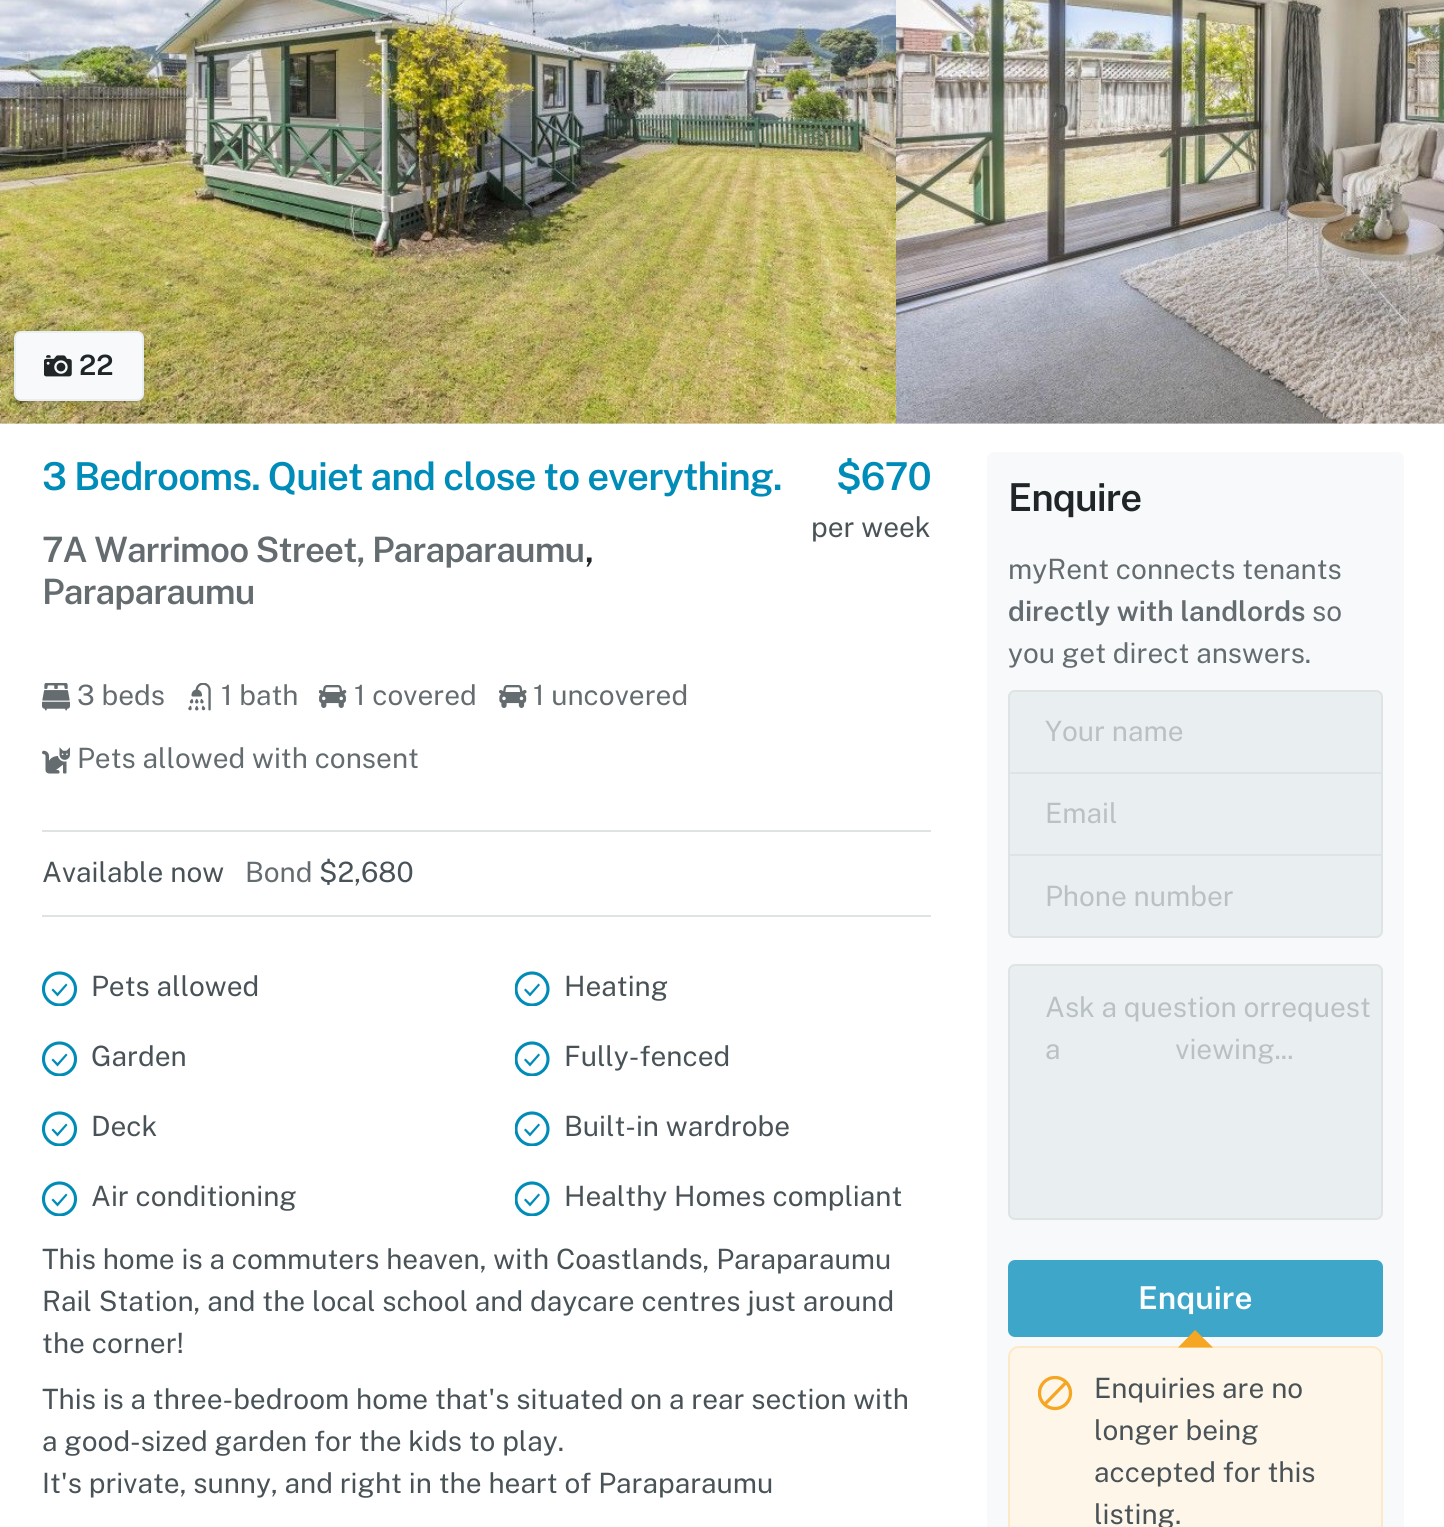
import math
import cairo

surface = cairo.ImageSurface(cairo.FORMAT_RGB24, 1444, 1527)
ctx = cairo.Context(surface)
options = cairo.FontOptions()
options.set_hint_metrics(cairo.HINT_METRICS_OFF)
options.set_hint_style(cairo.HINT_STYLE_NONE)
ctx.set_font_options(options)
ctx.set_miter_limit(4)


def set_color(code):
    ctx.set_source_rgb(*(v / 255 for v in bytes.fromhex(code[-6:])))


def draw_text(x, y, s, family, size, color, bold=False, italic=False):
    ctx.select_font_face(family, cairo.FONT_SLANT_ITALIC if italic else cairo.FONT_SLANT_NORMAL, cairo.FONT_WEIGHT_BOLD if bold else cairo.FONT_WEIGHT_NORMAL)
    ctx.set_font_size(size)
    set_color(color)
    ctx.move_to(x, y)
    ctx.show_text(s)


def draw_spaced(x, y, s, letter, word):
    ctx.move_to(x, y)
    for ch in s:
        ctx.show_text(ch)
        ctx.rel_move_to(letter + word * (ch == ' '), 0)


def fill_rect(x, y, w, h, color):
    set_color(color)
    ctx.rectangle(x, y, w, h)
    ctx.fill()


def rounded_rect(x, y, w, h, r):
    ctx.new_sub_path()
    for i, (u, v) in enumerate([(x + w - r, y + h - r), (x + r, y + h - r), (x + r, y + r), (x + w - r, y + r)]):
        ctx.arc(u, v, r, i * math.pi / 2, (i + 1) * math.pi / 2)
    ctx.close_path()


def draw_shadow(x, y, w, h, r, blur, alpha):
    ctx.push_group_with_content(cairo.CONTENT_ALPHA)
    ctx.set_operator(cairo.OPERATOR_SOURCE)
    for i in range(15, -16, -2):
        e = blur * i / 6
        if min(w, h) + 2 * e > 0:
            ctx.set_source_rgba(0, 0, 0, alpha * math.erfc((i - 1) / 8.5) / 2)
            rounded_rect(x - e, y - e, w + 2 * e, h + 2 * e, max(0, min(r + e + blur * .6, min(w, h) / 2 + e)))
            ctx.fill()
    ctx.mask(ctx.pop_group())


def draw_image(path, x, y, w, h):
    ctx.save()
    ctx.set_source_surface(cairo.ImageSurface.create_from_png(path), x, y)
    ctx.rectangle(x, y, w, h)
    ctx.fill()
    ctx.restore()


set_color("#ffffff")
ctx.paint()
fill_rect(0, 423, 1444, 1, "#f7f9fa")
draw_image("assets/img1.png", 0, 0, 896, 424)
draw_image("assets/img2.png", 896, 0, 548, 424)
set_color("#000000")
draw_shadow(16, 334, 126, 67, 0, 2, 0.1)
draw_shadow(14, 333, 130, 70, 0, 2.5, 0.1)
set_color("#f7f9fa")
rounded_rect(15, 332, 128, 68, 6)
ctx.fill_preserve()
set_color("#e9eef0")
ctx.stroke()
draw_image("assets/img3.png", 44, 355, 28, 22)
draw_text(79, 375, "22", "Public Sans SemiBold", 28, "#202628")
ctx.set_font_size(38.5)
set_color("#008cb8")
draw_spaced(42, 490, "3 Bedrooms. Quiet and close to everything.", -0.95, 0)
ctx.set_font_size(35)
set_color("#646c70")
draw_spaced(42, 562, "7A Warrimoo Street, Paraparaumu", -0.9, 0)
set_color("#202628")
draw_spaced(585, 562, ",", -0.9, 0)
set_color("#646c70")
draw_spaced(42, 604, "Paraparaumu", -0.9, 0)
ctx.set_font_size(38.5)
set_color("#008cb8")
draw_spaced(836, 490, "$670", -0.95, 0)
draw_text(811, 537, "per week", "Public Sans", 28, "#495357")
draw_image("assets/img4.png", 42, 683, 28, 28)
draw_text(77, 705, "3 beds", "Public Sans", 28, "#646c70")
draw_image("assets/img5.png", 188, 683, 23, 28)
draw_text(221, 705, "1 bath", "Public Sans", 28, "#646c70")
draw_image("assets/img6.png", 319, 685, 28, 23)
draw_text(354, 705, "1 covered", "Public Sans", 28, "#646c70")
draw_image("assets/img7.png", 499, 685, 28, 23)
draw_text(533, 705, "1 uncovered", "Public Sans", 28, "#646c70")
draw_image("assets/img8.png", 42, 747, 28, 27)
draw_text(77, 768, "Pets allowed with consent", "Public Sans", 28, "#646c70")
fill_rect(42, 830, 889, 2, "#dfe3e4")
fill_rect(42, 915, 889, 2, "#dfe3e4")
draw_text(42, 882, "Available now", "Public Sans", 28, "#495357")
draw_text(245, 882, "Bond", "Public Sans", 28, "#646c70")
draw_text(319, 882, "$2,680", "Public Sans", 28, "#495357")
ctx.save()
ctx.rectangle(42, 971, 35, 35)
ctx.clip()
ctx.arc(59.5, 989, 16, 0, 2 * math.pi)
set_color("#008cb7")
ctx.set_line_width(3.1)
ctx.stroke()
ctx.restore()
set_color("#008cb7")
ctx.new_path()
ctx.move_to(57.5, 993)
ctx.line_to(53, 988.5)
ctx.line_to(51.5, 990)
ctx.line_to(57.5, 996.5)
ctx.line_to(67.5, 985)
ctx.line_to(66, 983.5)
ctx.close_path()
ctx.fill()
draw_text(91, 996, "Pets allowed", "Public Sans", 28, "#495357")
ctx.save()
ctx.rectangle(515, 971, 35, 35)
ctx.clip()
ctx.arc(532, 989, 16, 0, 2 * math.pi)
set_color("#008cb7")
ctx.set_line_width(3.1)
ctx.stroke()
ctx.restore()
set_color("#008cb7")
ctx.new_path()
ctx.move_to(530, 993)
ctx.line_to(525.5, 988.5)
ctx.line_to(524, 990)
ctx.line_to(530, 996.5)
ctx.line_to(540, 985)
ctx.line_to(538.5, 983.5)
ctx.close_path()
ctx.fill()
draw_text(564, 996, "Heating", "Public Sans", 28, "#495357")
ctx.save()
ctx.rectangle(42, 1041, 35, 35)
ctx.clip()
ctx.arc(59.5, 1059, 16, 0, 2 * math.pi)
set_color("#008cb7")
ctx.set_line_width(3.1)
ctx.stroke()
ctx.restore()
set_color("#008cb7")
ctx.new_path()
ctx.move_to(57.5, 1063)
ctx.line_to(53, 1058.5)
ctx.line_to(51.5, 1060)
ctx.line_to(57.5, 1066.5)
ctx.line_to(67.5, 1055)
ctx.line_to(66, 1053.5)
ctx.close_path()
ctx.fill()
draw_text(91, 1066, "Garden", "Public Sans", 28, "#495357")
ctx.save()
ctx.rectangle(515, 1041, 35, 35)
ctx.clip()
ctx.arc(532, 1059, 16, 0, 2 * math.pi)
set_color("#008cb7")
ctx.set_line_width(3.1)
ctx.stroke()
ctx.restore()
set_color("#008cb7")
ctx.new_path()
ctx.move_to(530, 1063)
ctx.line_to(525.5, 1058.5)
ctx.line_to(524, 1060)
ctx.line_to(530, 1066.5)
ctx.line_to(540, 1055)
ctx.line_to(538.5, 1053.5)
ctx.close_path()
ctx.fill()
draw_text(564, 1066, "Fully-fenced", "Public Sans", 28, "#495357")
ctx.save()
ctx.rectangle(42, 1111, 35, 35)
ctx.clip()
ctx.arc(59.5, 1129, 16, 0, 2 * math.pi)
set_color("#008cb7")
ctx.set_line_width(3.1)
ctx.stroke()
ctx.restore()
set_color("#008cb7")
ctx.new_path()
ctx.move_to(57.5, 1133)
ctx.line_to(53, 1128.5)
ctx.line_to(51.5, 1130)
ctx.line_to(57.5, 1136.5)
ctx.line_to(67.5, 1125)
ctx.line_to(66, 1123.5)
ctx.close_path()
ctx.fill()
draw_text(91, 1136, "Deck", "Public Sans", 28, "#495357")
ctx.save()
ctx.rectangle(515, 1111, 35, 35)
ctx.clip()
ctx.arc(532, 1129, 16, 0, 2 * math.pi)
set_color("#008cb7")
ctx.set_line_width(3.1)
ctx.stroke()
ctx.restore()
set_color("#008cb7")
ctx.new_path()
ctx.move_to(530, 1133)
ctx.line_to(525.5, 1128.5)
ctx.line_to(524, 1130)
ctx.line_to(530, 1136.5)
ctx.line_to(540, 1125)
ctx.line_to(538.5, 1123.5)
ctx.close_path()
ctx.fill()
draw_text(564, 1136, "Built-in wardrobe", "Public Sans", 28, "#495357")
ctx.save()
ctx.rectangle(42, 1181, 35, 35)
ctx.clip()
ctx.arc(59.5, 1199, 16, 0, 2 * math.pi)
set_color("#008cb7")
ctx.set_line_width(3.1)
ctx.stroke()
ctx.restore()
set_color("#008cb7")
ctx.new_path()
ctx.move_to(57.5, 1203)
ctx.line_to(53, 1198.5)
ctx.line_to(51.5, 1200)
ctx.line_to(57.5, 1206.5)
ctx.line_to(67.5, 1195)
ctx.line_to(66, 1193.5)
ctx.close_path()
ctx.fill()
draw_text(91, 1206, "Air conditioning", "Public Sans", 28, "#495357")
ctx.save()
ctx.rectangle(515, 1181, 35, 35)
ctx.clip()
ctx.arc(532, 1199, 16, 0, 2 * math.pi)
set_color("#008cb7")
ctx.set_line_width(3.1)
ctx.stroke()
ctx.restore()
set_color("#008cb7")
ctx.new_path()
ctx.move_to(530, 1203)
ctx.line_to(525.5, 1198.5)
ctx.line_to(524, 1200)
ctx.line_to(530, 1206.5)
ctx.line_to(540, 1195)
ctx.line_to(538.5, 1193.5)
ctx.close_path()
ctx.fill()
draw_text(564, 1206, "Healthy Homes compliant", "Public Sans", 28, "#495357")
draw_text(42, 1269, "This home is a commuters heaven, with Coastlands, Paraparaumu", "Public Sans", 28, "#495357")
draw_text(42, 1311, "Rail Station, and the local school and daycare centres just around", "Public Sans", 28, "#495357")
draw_text(42, 1353, "the corner!", "Public Sans", 28, "#495357")
draw_text(42, 1409, "This is a three-bedroom home that's situated on a rear section with", "Public Sans", 28, "#495357")
draw_text(42, 1451, "a good-sized garden for the kids to play.", "Public Sans", 28, "#495357")
draw_text(42, 1493, "It's private, sunny, and right in the heart of Paraparaumu", "Public Sans", 28, "#495357")
set_color("#f7f9fa")
rounded_rect(987, 452, 417, 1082, 7)
ctx.fill()
ctx.select_font_face("Public Sans SemiBold")
ctx.set_font_size(38.5)
set_color("#202628")
draw_spaced(1008, 511, "Enquire", -0.95, 0)
draw_text(1008, 579, "myRent connects tenants", "Public Sans", 28, "#646c70")
draw_text(1008, 621, "directly with landlords", "Public Sans SemiBold", 28, "#646c70")
draw_text(1312, 621, "so", "Public Sans", 28, "#646c70")
draw_text(1008, 663, "you get direct answers.", "Public Sans", 28, "#646c70")
set_color("#e9eef0")
ctx.new_path()
ctx.move_to(1015, 691)
ctx.line_to(1376, 691)
ctx.curve_to(1379.5, 691, 1382, 693.5, 1382, 697)
ctx.line_to(1382, 773)
ctx.line_to(1009, 773)
ctx.line_to(1009, 697)
ctx.curve_to(1009, 693.5, 1011.5, 691, 1015, 691)
ctx.close_path()
ctx.fill_preserve()
set_color("#dfe3e4")
ctx.stroke()
draw_text(1045, 741, "Your name", "Public Sans", 28, "#bac1c2")
set_color("#e9eef0")
ctx.rectangle(1009, 773, 373, 82)
ctx.fill_preserve()
set_color("#dfe3e4")
ctx.stroke()
draw_text(1045, 823, "Email", "Public Sans", 28, "#bac1c2")
set_color("#e9eef0")
ctx.new_path()
ctx.move_to(1009, 855)
ctx.line_to(1382, 855)
ctx.line_to(1382, 931)
ctx.curve_to(1382, 934.5, 1379.5, 937, 1376, 937)
ctx.line_to(1015, 937)
ctx.curve_to(1011.5, 937, 1009, 934.5, 1009, 931)
ctx.close_path()
ctx.fill_preserve()
set_color("#dfe3e4")
ctx.stroke()
draw_text(1045, 906, "Phone number", "Public Sans", 28, "#bac1c2")
set_color("#e9eef0")
rounded_rect(1009, 965, 373, 254, 6)
ctx.fill_preserve()
set_color("#dfe3e4")
ctx.stroke()
draw_text(1045, 1017, "Ask a question orrequest", "Public Sans", 28, "#bac1c2")
draw_spaced(1045, 1059, "a viewing...", 0, 108)
set_color("#3ea7c9")
rounded_rect(1009, 1261, 373, 75, 6)
ctx.fill_preserve()
ctx.stroke()
draw_text(1138, 1309, "Enquire", "Public Sans SemiBold", 31.5, "#fdfefe")
set_color("#fef6e9")
rounded_rect(1009, 1347, 373, 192, 10)
ctx.fill_preserve()
set_color("#fde9c8")
ctx.stroke()
set_color("#f5a623")
ctx.new_path()
ctx.move_to(1213, 1347.5)
ctx.line_to(1178, 1347.5)
ctx.line_to(1195, 1330)
ctx.close_path()
ctx.fill()
ctx.save()
ctx.rectangle(1038, 1376, 35, 35)
ctx.clip()
ctx.arc(1055, 1393, 15.5, 0, 2 * math.pi)
ctx.set_line_width(3.3)
ctx.stroke()
ctx.restore()
ctx.new_path()
ctx.move_to(1045.5, 1403.5)
ctx.line_to(1066, 1382.5)
ctx.set_line_width(3.3)
ctx.set_line_cap(cairo.LINE_CAP_ROUND)
ctx.set_line_join(cairo.LINE_JOIN_ROUND)
ctx.stroke()
draw_text(1094, 1398, "Enquiries are no", "Public Sans", 28, "#495357")
draw_text(1094, 1440, "longer being", "Public Sans", 28, "#495357")
draw_text(1094, 1482, "accepted for this", "Public Sans", 28, "#495357")
draw_text(1094, 1524, "listing.", "Public Sans", 28, "#495357")
surface.write_to_png("output.png")
